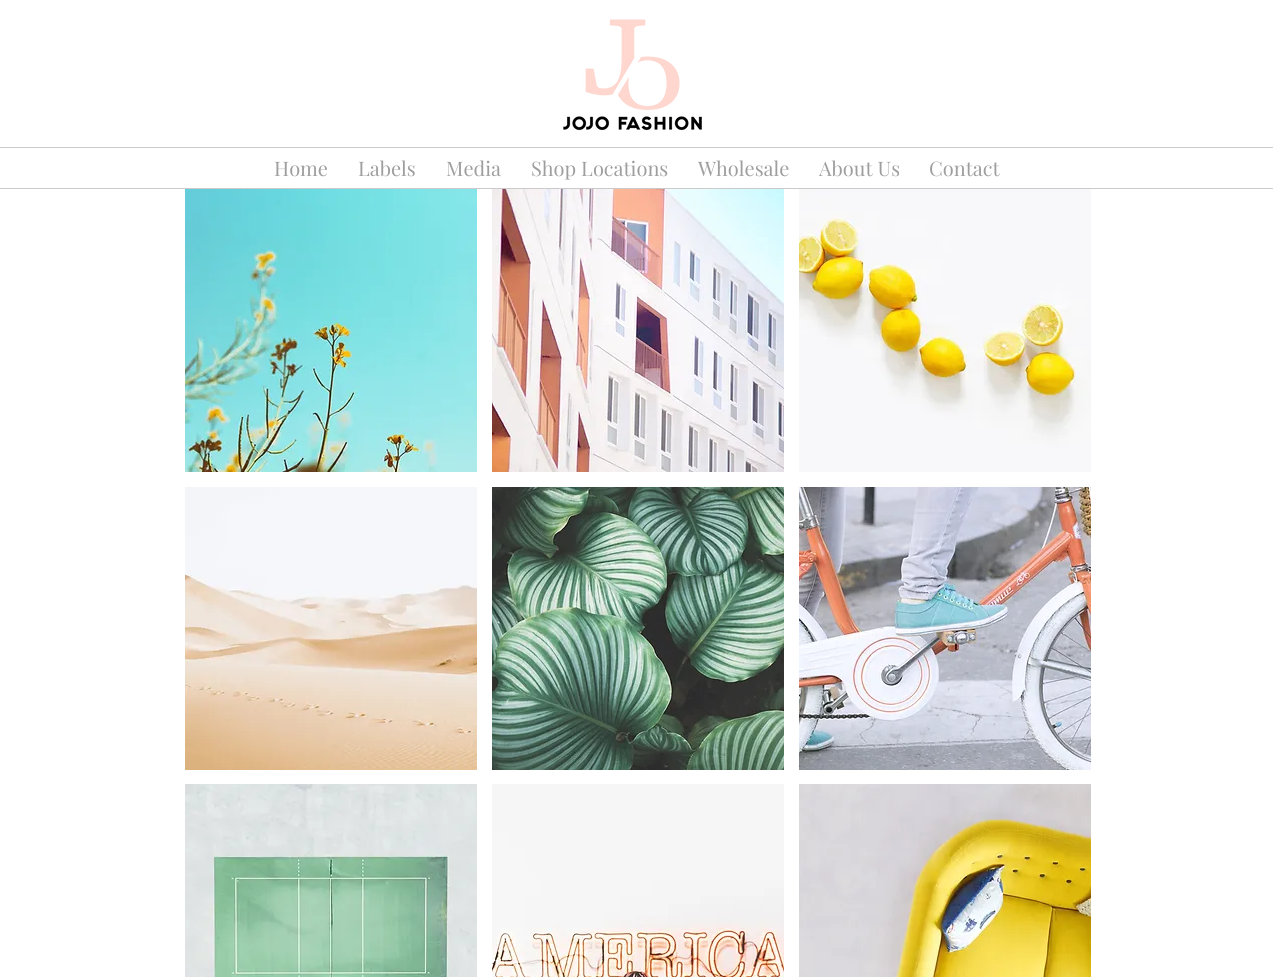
import math
import cairo

surface = cairo.ImageSurface(cairo.FORMAT_RGB24, 1273, 977)
ctx = cairo.Context(surface)
options = cairo.FontOptions()
options.set_hint_metrics(cairo.HINT_METRICS_OFF)
options.set_hint_style(cairo.HINT_STYLE_NONE)
ctx.set_font_options(options)
ctx.set_miter_limit(4)


def set_color(code):
    ctx.set_source_rgb(*(v / 255 for v in bytes.fromhex(code[-6:])))


def draw_text(x, y, s, family, size, color, bold=False, italic=False):
    ctx.select_font_face(family, cairo.FONT_SLANT_ITALIC if italic else cairo.FONT_SLANT_NORMAL, cairo.FONT_WEIGHT_BOLD if bold else cairo.FONT_WEIGHT_NORMAL)
    ctx.set_font_size(size)
    set_color(color)
    ctx.move_to(x, y)
    ctx.show_text(s)


def fill_rect(x, y, w, h, color):
    set_color(color)
    ctx.rectangle(x, y, w, h)
    ctx.fill()


def draw_image(path, x, y, w, h):
    ctx.save()
    ctx.set_source_surface(cairo.ImageSurface.create_from_png(path), x, y)
    ctx.rectangle(x, y, w, h)
    ctx.fill()
    ctx.restore()


set_color("#ffffff")
ctx.paint()
draw_image("assets/img1.png", 563, 19, 139, 112)
fill_rect(0, 147, 1273, 1, "#cacaca")
fill_rect(0, 188, 1273, 1, "#cacaca")
draw_text(274, 176, "Home", "Playfair Display", 20, "#9e9e9e")
draw_text(358, 176, "Labels", "Playfair Display", 20, "#9e9e9e")
draw_text(446, 176, "Media", "Playfair Display", 20, "#9e9e9e")
draw_text(531, 176, "Shop Locations", "Playfair Display", 20, "#9e9e9e")
draw_text(698, 176, "Wholesale", "Playfair Display", 20, "#9e9e9e")
draw_text(819, 176, "About Us", "Playfair Display", 20, "#9e9e9e")
draw_text(929, 176, "Contact", "Playfair Display", 20, "#9e9e9e")
draw_image("assets/img2.png", 185, 189, 292, 283)
draw_image("assets/img3.png", 492, 189, 292, 283)
draw_image("assets/img4.png", 799, 189, 292, 283)
draw_image("assets/img5.png", 185, 487, 292, 283)
draw_image("assets/img6.png", 492, 487, 292, 283)
draw_image("assets/img7.png", 799, 487, 292, 283)
draw_image("assets/img8.png", 185, 784, 292, 193)
draw_image("assets/img9.png", 492, 784, 292, 193)
draw_image("assets/img10.png", 799, 784, 292, 193)
surface.write_to_png("output.png")
